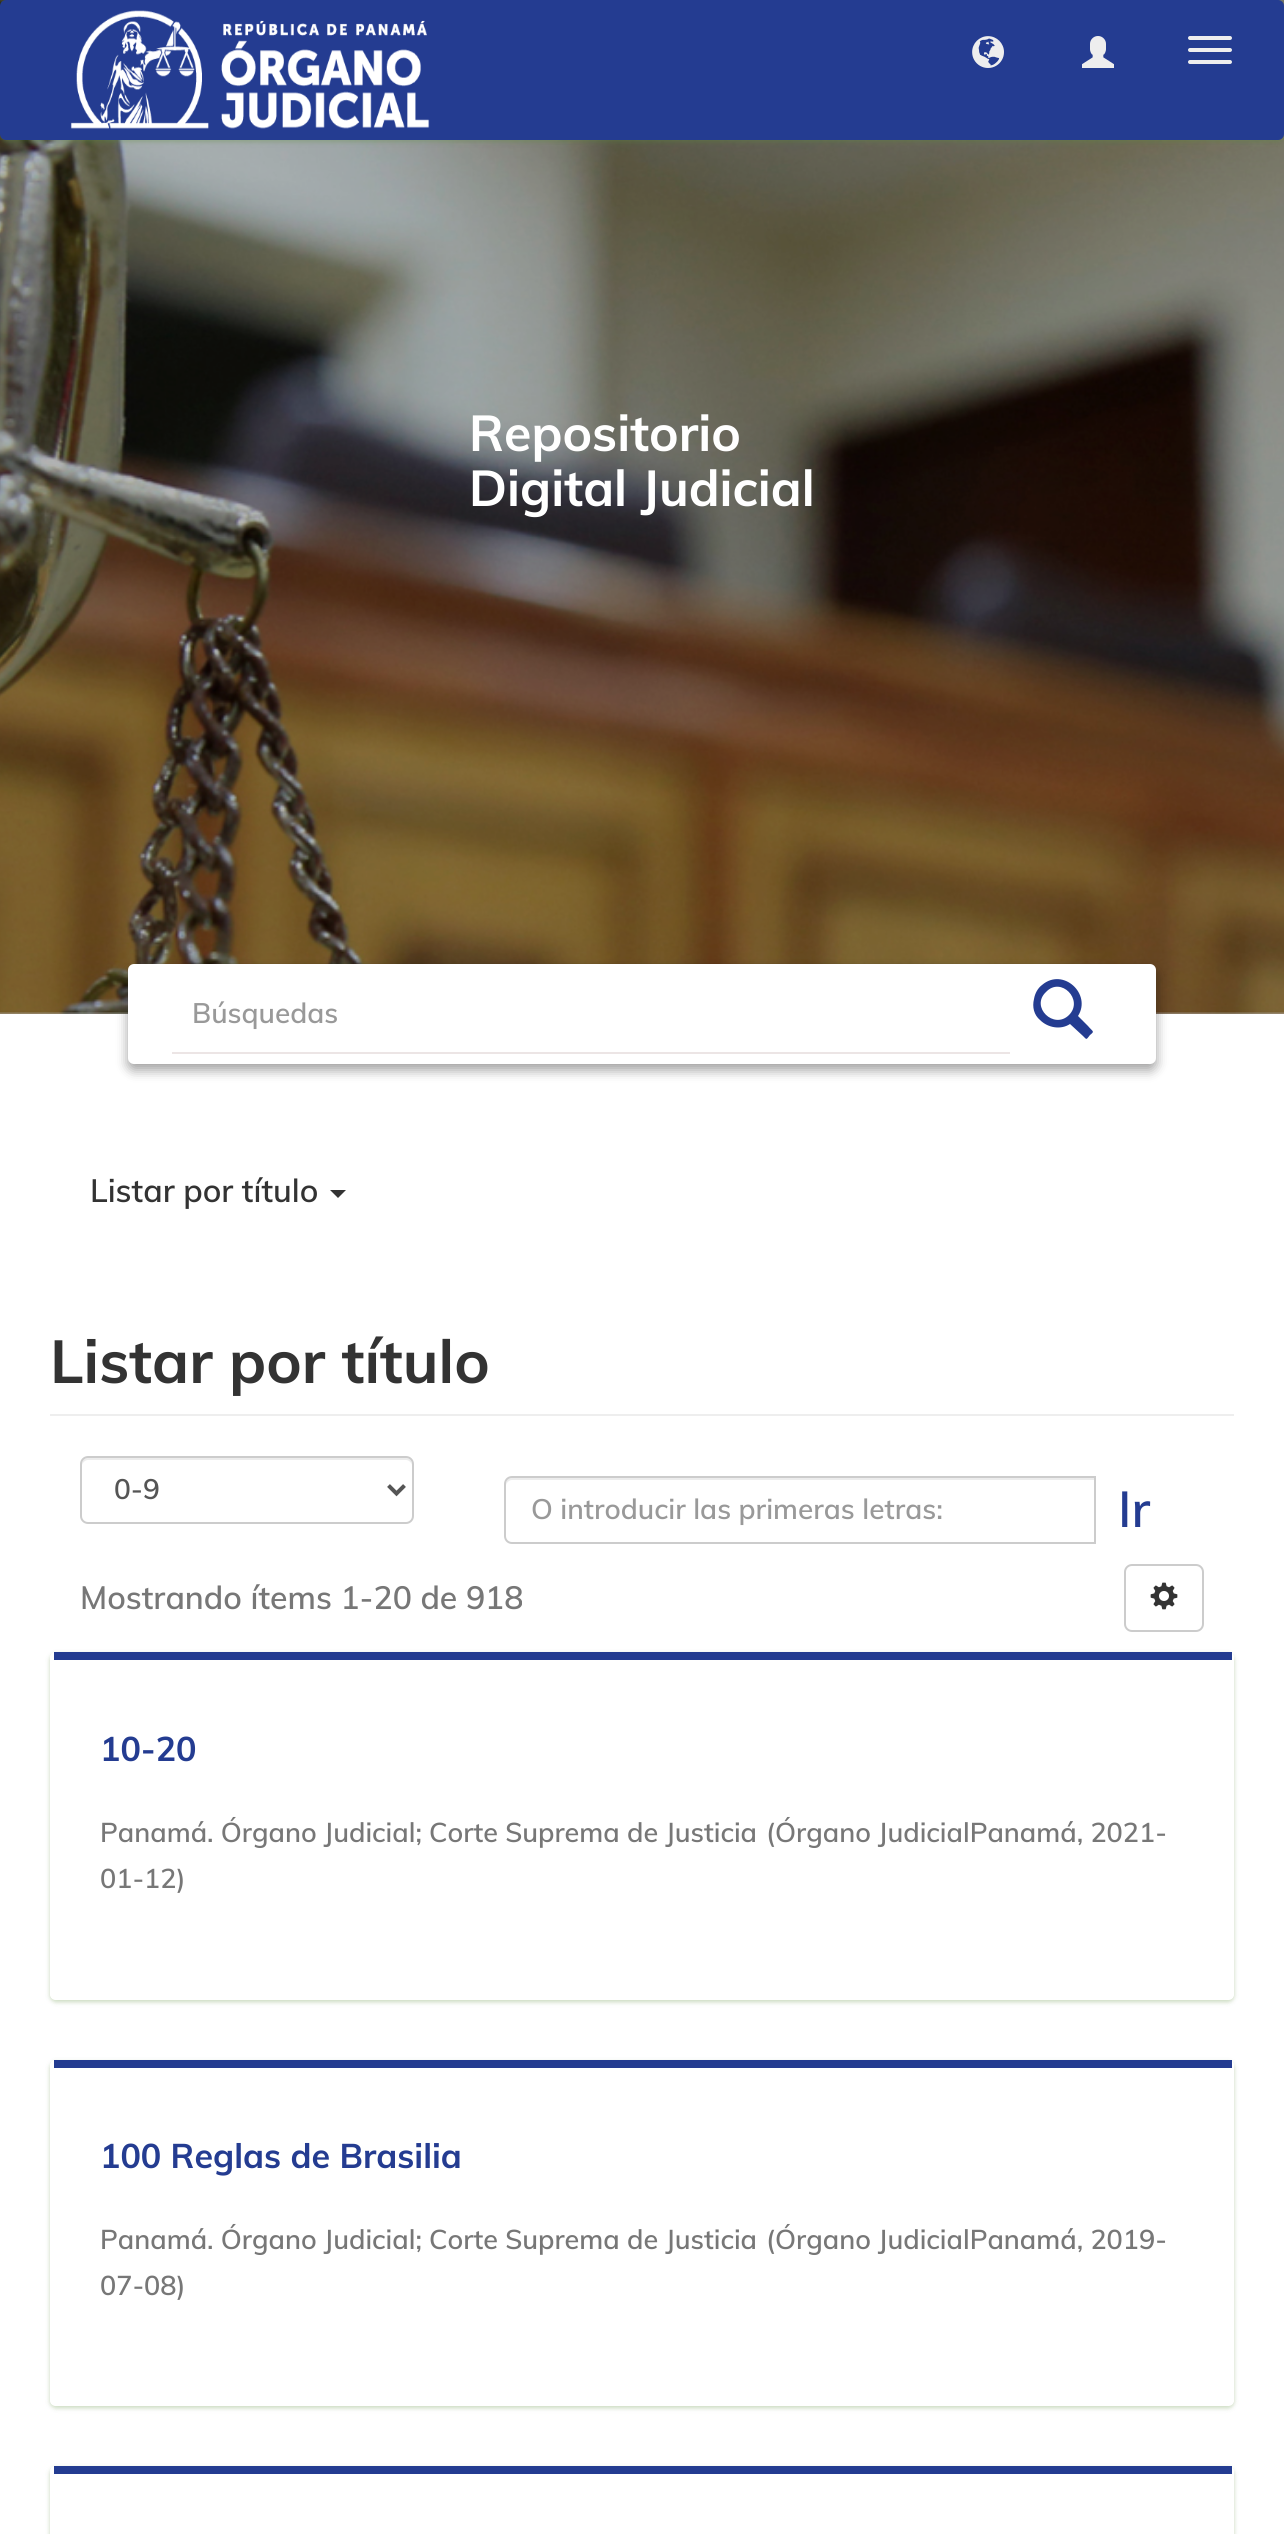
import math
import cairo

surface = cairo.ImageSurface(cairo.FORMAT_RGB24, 1284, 2534)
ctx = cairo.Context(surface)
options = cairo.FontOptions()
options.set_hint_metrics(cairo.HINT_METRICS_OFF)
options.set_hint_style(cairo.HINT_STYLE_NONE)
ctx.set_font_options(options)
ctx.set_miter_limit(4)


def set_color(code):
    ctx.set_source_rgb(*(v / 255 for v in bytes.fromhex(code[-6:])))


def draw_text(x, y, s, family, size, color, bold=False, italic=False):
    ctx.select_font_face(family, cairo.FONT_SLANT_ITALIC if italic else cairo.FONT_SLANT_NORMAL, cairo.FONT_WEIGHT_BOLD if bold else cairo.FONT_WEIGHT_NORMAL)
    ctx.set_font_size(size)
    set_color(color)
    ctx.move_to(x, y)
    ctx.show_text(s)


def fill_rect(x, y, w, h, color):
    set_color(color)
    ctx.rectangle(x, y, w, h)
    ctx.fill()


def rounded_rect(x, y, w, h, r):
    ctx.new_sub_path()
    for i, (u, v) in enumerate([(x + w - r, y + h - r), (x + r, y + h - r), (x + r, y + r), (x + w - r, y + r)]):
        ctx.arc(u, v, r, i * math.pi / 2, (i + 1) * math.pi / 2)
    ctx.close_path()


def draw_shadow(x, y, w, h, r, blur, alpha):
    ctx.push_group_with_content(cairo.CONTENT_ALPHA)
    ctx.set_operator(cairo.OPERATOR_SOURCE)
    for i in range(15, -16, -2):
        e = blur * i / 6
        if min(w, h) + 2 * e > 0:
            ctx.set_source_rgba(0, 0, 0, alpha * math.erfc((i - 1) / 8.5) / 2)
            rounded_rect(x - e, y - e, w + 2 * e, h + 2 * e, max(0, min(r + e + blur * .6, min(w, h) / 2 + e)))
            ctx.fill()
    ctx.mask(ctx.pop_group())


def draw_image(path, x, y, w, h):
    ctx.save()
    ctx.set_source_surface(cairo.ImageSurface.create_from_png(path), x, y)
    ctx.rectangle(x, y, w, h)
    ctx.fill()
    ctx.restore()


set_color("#ffffff")
ctx.paint()
draw_image("assets/img4.png", 0, 0, 1284, 1014)
set_color("#77c043")
draw_shadow(0, 2, 1284, 140, 6, 2, 0.24)
set_color("#312f30")
draw_shadow(0, 2, 1284, 140, 6, 3, 0.12)
set_color("#243c91")
rounded_rect(0, 0, 1284, 140, 6)
ctx.fill()
draw_image("assets/img1.png", 70, 10, 360, 119)
draw_image("assets/img2.png", 972, 36, 32, 32)
draw_image("assets/img3.png", 1082, 36, 32, 32)
set_color("#eeeeee")
rounded_rect(1188, 36, 44, 4, 2)
ctx.fill()
rounded_rect(1188, 48, 44, 4, 2)
ctx.fill()
rounded_rect(1188, 60, 44, 4, 2)
ctx.fill()
draw_text(469, 451, "Repositorio", "Muli", 50, "#ffffff", bold=True)
draw_text(469, 506, "Digital Judicial", "Muli", 50, "#ffffff", bold=True)
set_color("#000000")
draw_shadow(128, 970, 1028, 100, 6, 6, 0.28)
set_color("#312f30")
draw_shadow(128, 970, 1028, 100, 6, 6, 0.16)
set_color("#ffffff")
rounded_rect(128, 964, 1028, 100, 6)
ctx.fill()
fill_rect(172, 1052, 838, 2, "#ece5e5")
draw_text(192, 1023, "Búsquedas", "Muli SemiBold", 28, "#999999")
set_color("#243c91")
ctx.new_path()
ctx.move_to(1040, 1020)
ctx.curve_to(1034, 1015, 1032, 1007, 1034, 999)
ctx.curve_to(1035, 993, 1038, 988, 1042, 985)
ctx.curve_to(1063, 967, 1092, 994, 1078, 1016)
ctx.line_to(1088, 1026)
ctx.curve_to(1093, 1032, 1095, 1031, 1090, 1035)
ctx.curve_to(1086, 1040, 1087, 1040, 1083, 1036)
ctx.line_to(1070, 1024)
ctx.curve_to(1061, 1030, 1048, 1028, 1040, 1020)
ctx.close_path()
ctx.move_to(1046, 992)
ctx.curve_to(1030, 1007, 1054, 1030, 1069, 1015)
ctx.curve_to(1084, 1000, 1061, 976, 1046, 992)
ctx.close_path()
ctx.fill()
draw_text(90, 1202, "Listar por título", "Muli SemiBold", 32, "#333333")
ctx.new_path()
ctx.move_to(330, 1190)
ctx.line_to(346, 1190)
ctx.line_to(338, 1198)
ctx.close_path()
ctx.fill()
fill_rect(50, 1414, 1184, 2, "#eeeeee")
draw_text(50, 1383, "Listar por título", "Muli", 60, "#333333", bold=True)
set_color("#ececec")
ctx.new_path()
ctx.move_to(88, 1460)
ctx.line_to(406, 1460)
ctx.curve_to(409, 1460, 412, 1463, 412, 1466)
ctx.curve_to(412, 1462, 411, 1458, 406, 1458)
ctx.line_to(88, 1458)
ctx.curve_to(83, 1458, 82, 1462, 82, 1466)
ctx.curve_to(82, 1463, 85, 1460, 88, 1460)
ctx.close_path()
ctx.fill()
rounded_rect(81, 1457, 332, 66, 7)
set_color("#cccccc")
ctx.stroke()
ctx.new_path()
ctx.move_to(388.5, 1485.5)
ctx.line_to(396.5, 1493.5)
ctx.line_to(404.5, 1485.5)
set_color("#555555")
ctx.set_line_width(4)
ctx.stroke()
draw_text(114, 1499, "0-9", "Muli SemiBold", 28, "#555555")
set_color("#ececec")
ctx.new_path()
ctx.move_to(512, 1480)
ctx.line_to(1094, 1480)
ctx.line_to(1094, 1478)
ctx.line_to(512, 1478)
ctx.curve_to(507, 1478, 506, 1482, 506, 1486)
ctx.curve_to(506, 1483, 509, 1480, 512, 1480)
ctx.close_path()
ctx.fill()
ctx.new_path()
ctx.move_to(512, 1477)
ctx.line_to(1095, 1477)
ctx.line_to(1095, 1543)
ctx.line_to(512, 1543)
ctx.curve_to(508, 1543, 505, 1540, 505, 1536)
ctx.line_to(505, 1484)
ctx.curve_to(505, 1480, 508, 1477, 512, 1477)
ctx.close_path()
set_color("#cccccc")
ctx.set_line_width(2)
ctx.stroke()
draw_text(531, 1519, "O introducir las primeras letras:", "Muli SemiBold", 28, "#999999")
draw_text(1118, 1527, "Ir", "Muli SemiBold", 50, "#243c91")
draw_text(80, 1609, "Mostrando ítems 1-20 de 918", "Muli SemiBold", 32, "#777777")
rounded_rect(1125, 1565, 78, 66, 7)
set_color("#cccccc")
ctx.stroke()
draw_image("assets/img5.png", 1150, 1582, 28, 28)
ctx.save()
ctx.set_fill_rule(cairo.FILL_RULE_EVEN_ODD)
ctx.new_path()
ctx.move_to(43, 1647)
ctx.line_to(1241, 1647)
ctx.line_to(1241, 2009)
ctx.line_to(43, 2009)
ctx.close_path()
ctx.move_to(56, 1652)
ctx.line_to(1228, 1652)
ctx.curve_to(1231.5, 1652, 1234, 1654.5, 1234, 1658)
ctx.line_to(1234, 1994)
ctx.curve_to(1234, 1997.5, 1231.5, 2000, 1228, 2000)
ctx.line_to(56, 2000)
ctx.curve_to(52.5, 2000, 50, 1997.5, 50, 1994)
ctx.line_to(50, 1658)
ctx.curve_to(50, 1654.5, 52.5, 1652, 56, 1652)
ctx.close_path()
ctx.clip()
set_color("#77c043")
draw_shadow(50, 1654, 1184, 348, 6, 2, 0.24)
ctx.restore()
ctx.save()
ctx.set_fill_rule(cairo.FILL_RULE_EVEN_ODD)
ctx.new_path()
ctx.move_to(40, 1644)
ctx.line_to(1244, 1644)
ctx.line_to(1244, 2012)
ctx.line_to(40, 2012)
ctx.close_path()
ctx.move_to(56, 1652)
ctx.line_to(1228, 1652)
ctx.curve_to(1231.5, 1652, 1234, 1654.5, 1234, 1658)
ctx.line_to(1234, 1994)
ctx.curve_to(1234, 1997.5, 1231.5, 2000, 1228, 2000)
ctx.line_to(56, 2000)
ctx.curve_to(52.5, 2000, 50, 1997.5, 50, 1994)
ctx.line_to(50, 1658)
ctx.curve_to(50, 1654.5, 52.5, 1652, 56, 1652)
ctx.close_path()
ctx.clip()
set_color("#312f30")
draw_shadow(50, 1654, 1184, 348, 6, 3, 0.12)
ctx.restore()
fill_rect(54, 1652, 1178, 8, "#243c91")
draw_text(100, 1761, "10-20", "Muli", 34, "#243c91", bold=True)
draw_text(100, 1842, "Panamá. Órgano Judicial; Corte Suprema de Justicia", "Muli SemiBold", 27, "#777777")
draw_text(766, 1842, "(Órgano JudicialPanamá, 2021-", "Muli SemiBold", 27, "#777777")
draw_text(100, 1888, "01-12)", "Muli SemiBold", 27, "#777777")
ctx.save()
ctx.set_fill_rule(cairo.FILL_RULE_EVEN_ODD)
ctx.new_path()
ctx.move_to(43, 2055)
ctx.line_to(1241, 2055)
ctx.line_to(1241, 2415)
ctx.line_to(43, 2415)
ctx.close_path()
ctx.move_to(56, 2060)
ctx.line_to(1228, 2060)
ctx.curve_to(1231.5, 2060, 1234, 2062.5, 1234, 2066)
ctx.line_to(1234, 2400)
ctx.curve_to(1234, 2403.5, 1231.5, 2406, 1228, 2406)
ctx.line_to(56, 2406)
ctx.curve_to(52.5, 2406, 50, 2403.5, 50, 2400)
ctx.line_to(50, 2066)
ctx.curve_to(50, 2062.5, 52.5, 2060, 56, 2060)
ctx.close_path()
ctx.clip()
set_color("#77c043")
draw_shadow(50, 2062, 1184, 346, 6, 2, 0.24)
ctx.restore()
ctx.save()
ctx.set_fill_rule(cairo.FILL_RULE_EVEN_ODD)
ctx.new_path()
ctx.move_to(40, 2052)
ctx.line_to(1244, 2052)
ctx.line_to(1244, 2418)
ctx.line_to(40, 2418)
ctx.close_path()
ctx.move_to(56, 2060)
ctx.line_to(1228, 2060)
ctx.curve_to(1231.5, 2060, 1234, 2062.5, 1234, 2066)
ctx.line_to(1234, 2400)
ctx.curve_to(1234, 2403.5, 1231.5, 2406, 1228, 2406)
ctx.line_to(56, 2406)
ctx.curve_to(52.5, 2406, 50, 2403.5, 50, 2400)
ctx.line_to(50, 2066)
ctx.curve_to(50, 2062.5, 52.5, 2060, 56, 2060)
ctx.close_path()
ctx.clip()
set_color("#312f30")
draw_shadow(50, 2062, 1184, 346, 6, 3, 0.12)
ctx.restore()
fill_rect(54, 2060, 1178, 8, "#243c91")
draw_text(100, 2168, "100 Reglas de Brasilia", "Muli", 34, "#243c91", bold=True)
draw_text(100, 2249, "Panamá. Órgano Judicial; Corte Suprema de Justicia", "Muli SemiBold", 27, "#777777")
draw_text(766, 2249, "(Órgano JudicialPanamá, 2019-", "Muli SemiBold", 27, "#777777")
draw_text(100, 2295, "07-08)", "Muli SemiBold", 27, "#777777")
ctx.save()
ctx.set_fill_rule(cairo.FILL_RULE_EVEN_ODD)
ctx.new_path()
ctx.move_to(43, 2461)
ctx.line_to(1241, 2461)
ctx.line_to(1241, 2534)
ctx.line_to(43, 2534)
ctx.close_path()
ctx.move_to(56, 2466)
ctx.line_to(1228, 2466)
ctx.curve_to(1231.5, 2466, 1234, 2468.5, 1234, 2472)
ctx.line_to(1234, 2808)
ctx.curve_to(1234, 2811.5, 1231.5, 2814, 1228, 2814)
ctx.line_to(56, 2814)
ctx.curve_to(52.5, 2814, 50, 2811.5, 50, 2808)
ctx.line_to(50, 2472)
ctx.curve_to(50, 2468.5, 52.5, 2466, 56, 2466)
ctx.close_path()
ctx.clip()
set_color("#77c043")
draw_shadow(50, 2468, 1184, 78, 6, 2, 0.24)
ctx.restore()
ctx.save()
ctx.set_fill_rule(cairo.FILL_RULE_EVEN_ODD)
ctx.new_path()
ctx.move_to(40, 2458)
ctx.line_to(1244, 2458)
ctx.line_to(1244, 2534)
ctx.line_to(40, 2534)
ctx.close_path()
ctx.move_to(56, 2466)
ctx.line_to(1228, 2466)
ctx.curve_to(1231.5, 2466, 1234, 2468.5, 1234, 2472)
ctx.line_to(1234, 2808)
ctx.curve_to(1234, 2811.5, 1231.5, 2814, 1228, 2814)
ctx.line_to(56, 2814)
ctx.curve_to(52.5, 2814, 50, 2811.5, 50, 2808)
ctx.line_to(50, 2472)
ctx.curve_to(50, 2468.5, 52.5, 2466, 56, 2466)
ctx.close_path()
ctx.clip()
set_color("#312f30")
draw_shadow(50, 2468, 1184, 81, 6, 3, 0.12)
ctx.restore()
fill_rect(54, 2466, 1178, 8, "#243c91")
surface.write_to_png("output.png")
